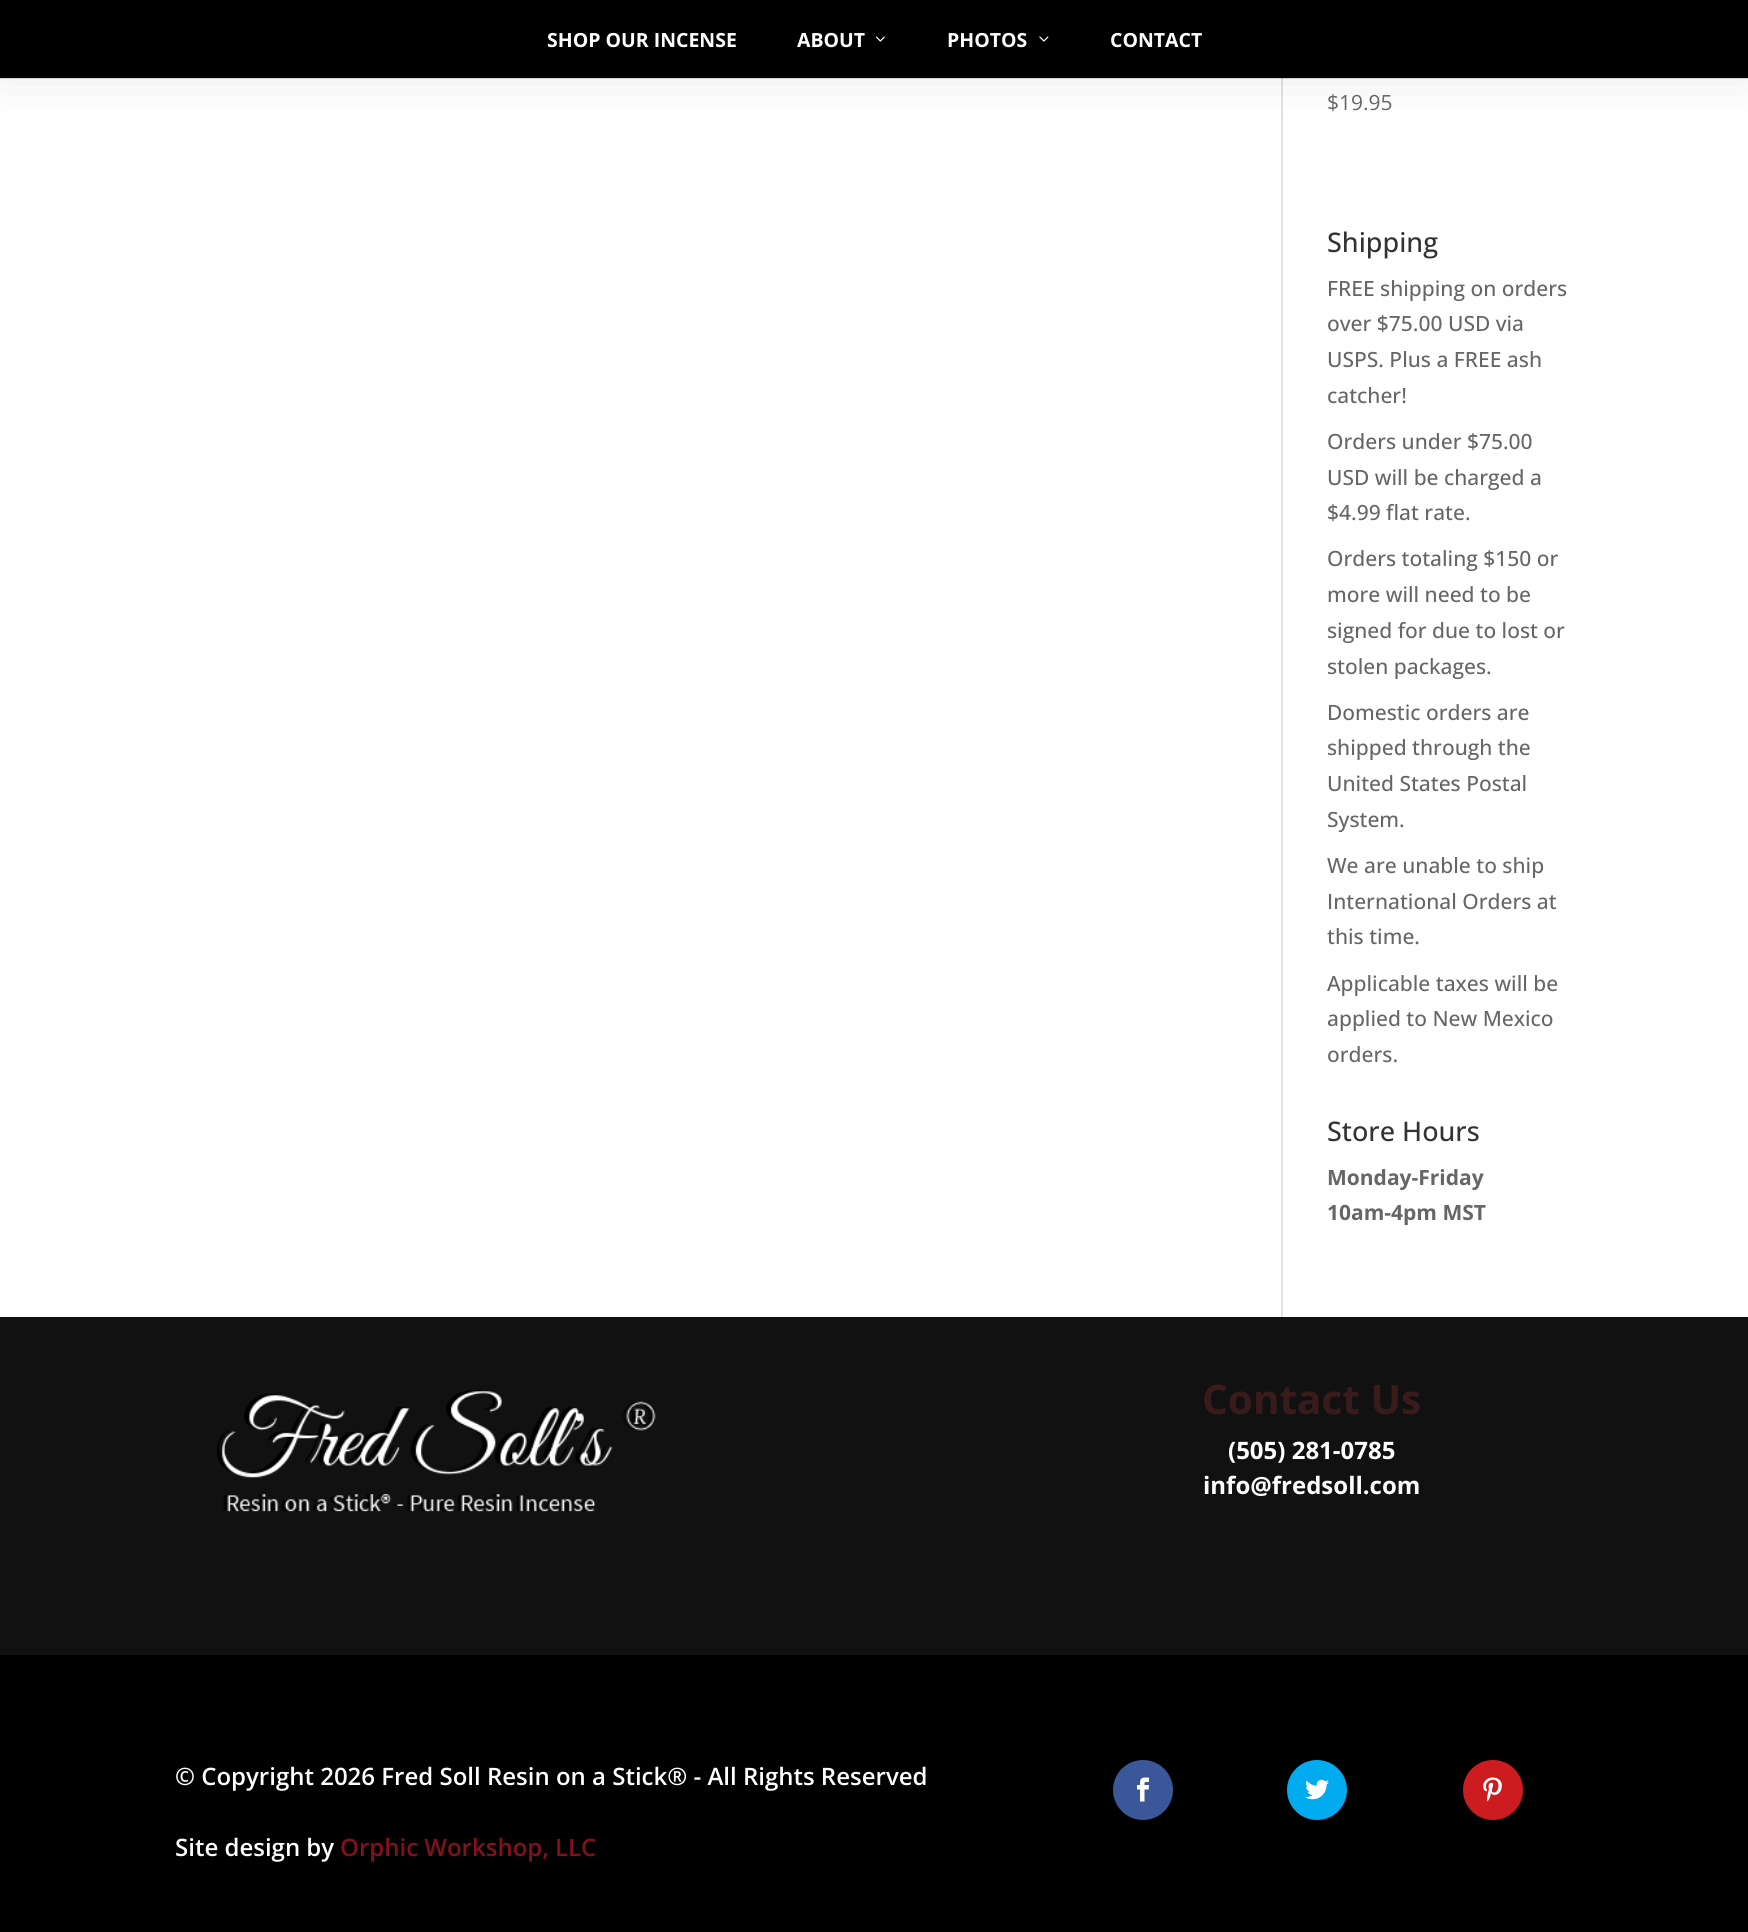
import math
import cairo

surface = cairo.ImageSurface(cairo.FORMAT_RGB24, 1748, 1932)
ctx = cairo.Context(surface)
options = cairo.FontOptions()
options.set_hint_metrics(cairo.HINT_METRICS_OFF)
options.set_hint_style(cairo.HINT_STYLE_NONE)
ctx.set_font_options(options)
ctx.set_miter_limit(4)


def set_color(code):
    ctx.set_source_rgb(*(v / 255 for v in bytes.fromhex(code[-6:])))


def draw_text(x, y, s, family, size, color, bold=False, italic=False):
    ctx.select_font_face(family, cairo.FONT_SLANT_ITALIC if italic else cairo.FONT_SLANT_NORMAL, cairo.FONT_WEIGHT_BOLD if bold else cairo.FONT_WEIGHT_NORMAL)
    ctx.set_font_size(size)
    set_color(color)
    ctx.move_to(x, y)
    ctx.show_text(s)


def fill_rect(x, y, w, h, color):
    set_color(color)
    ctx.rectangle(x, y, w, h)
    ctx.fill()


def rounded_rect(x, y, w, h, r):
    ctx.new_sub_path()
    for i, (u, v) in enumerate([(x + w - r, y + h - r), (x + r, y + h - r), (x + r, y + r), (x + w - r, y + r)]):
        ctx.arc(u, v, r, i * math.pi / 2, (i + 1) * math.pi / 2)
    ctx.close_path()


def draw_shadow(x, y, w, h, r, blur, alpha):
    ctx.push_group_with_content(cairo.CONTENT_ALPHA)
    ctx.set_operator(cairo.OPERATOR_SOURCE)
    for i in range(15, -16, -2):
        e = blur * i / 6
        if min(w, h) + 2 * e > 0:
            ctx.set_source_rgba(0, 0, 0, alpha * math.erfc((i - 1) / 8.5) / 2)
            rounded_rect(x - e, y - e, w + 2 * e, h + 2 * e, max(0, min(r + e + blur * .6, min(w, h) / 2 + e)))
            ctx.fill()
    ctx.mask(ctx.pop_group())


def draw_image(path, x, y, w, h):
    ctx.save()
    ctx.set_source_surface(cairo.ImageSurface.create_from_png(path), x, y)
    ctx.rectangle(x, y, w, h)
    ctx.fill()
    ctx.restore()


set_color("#ffffff")
ctx.paint()
fill_rect(1281, 78, 2, 1239, "#e2e2e2")
set_color("#000000")
draw_shadow(0, 0, 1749, 60, 0, 31.5, 0.15)
fill_rect(0, 0, 1748, 78, "#000000")
ctx.set_source_rgba(0, 0, 0, 0.15)
ctx.rectangle(0, 78, 1748, 1)
ctx.fill()
draw_text(547, 47, "SHOP OUR INCENSE", "Open Sans", 19.5, "#ffffff", bold=True)
draw_text(797, 47, "ABOUT", "Open Sans", 19.5, "#ffffff", bold=True)
draw_image("assets/img1.png", 875, 36, 10, 6)
draw_text(947, 47, "PHOTOS", "Open Sans", 19.5, "#ffffff", bold=True)
draw_image("assets/img2.png", 1039, 36, 10, 6)
draw_text(1110, 47, "CONTACT", "Open Sans", 19.5, "#ffffff", bold=True)
draw_text(1327, 110, "$19.95", "Open Sans", 21, "#666666")
draw_text(1327, 252, "Shipping", "Open Sans Medium", 27, "#333333")
draw_text(1327, 296, "FREE shipping on orders", "Open Sans Medium", 21, "#666666")
draw_text(1327, 331, "over $75.00 USD via", "Open Sans Medium", 21, "#666666")
draw_text(1327, 367, "USPS. Plus a FREE ash", "Open Sans Medium", 21, "#666666")
draw_text(1327, 403, "catcher!", "Open Sans Medium", 21, "#666666")
draw_text(1327, 449, "Orders under $75.00", "Open Sans Medium", 21, "#666666")
draw_text(1327, 485, "USD will be charged a", "Open Sans Medium", 21, "#666666")
draw_text(1327, 520, "$4.99 flat rate.", "Open Sans Medium", 21, "#666666")
draw_text(1327, 566, "Orders totaling $150 or", "Open Sans Medium", 21, "#666666")
draw_text(1327, 602, "more will need to be", "Open Sans Medium", 21, "#666666")
draw_text(1327, 638, "signed for due to lost or", "Open Sans Medium", 21, "#666666")
draw_text(1327, 674, "stolen packages.", "Open Sans Medium", 21, "#666666")
draw_text(1327, 720, "Domestic orders are", "Open Sans Medium", 21, "#666666")
draw_text(1327, 755, "shipped through the", "Open Sans Medium", 21, "#666666")
draw_text(1327, 791, "United States Postal", "Open Sans Medium", 21, "#666666")
draw_text(1327, 827, "System.", "Open Sans Medium", 21, "#666666")
draw_text(1327, 873, "We are unable to ship", "Open Sans Medium", 21, "#666666")
draw_text(1327, 909, "International Orders at", "Open Sans Medium", 21, "#666666")
draw_text(1327, 944, "this time.", "Open Sans Medium", 21, "#666666")
draw_text(1327, 991, "Applicable taxes will be", "Open Sans Medium", 21, "#666666")
draw_text(1327, 1026, "applied to New Mexico", "Open Sans Medium", 21, "#666666")
draw_text(1327, 1062, "orders.", "Open Sans Medium", 21, "#666666")
draw_text(1327, 1141, "Store Hours", "Open Sans Medium", 27, "#333333")
draw_text(1327, 1185, "Monday-Friday", "Open Sans", 21, "#666666", bold=True)
draw_text(1327, 1220, "10am-4pm MST", "Open Sans", 21, "#666666", bold=True)
fill_rect(0, 1317, 1748, 338, "#111111")
draw_image("assets/img3.png", 217, 1390, 439, 122)
draw_text(1202, 1414, "Contact Us", "Open Sans", 40.5, "#3a1b1b", bold=True)
draw_text(1228, 1459, "(505) 281-0785", "Open Sans", 24, "#ffffff", bold=True)
draw_text(1203, 1494, "info@fredsoll.com", "Open Sans", 24, "#ffffff", bold=True)
fill_rect(0, 1655, 1748, 277, "#000000")
draw_text(175, 1785, "© Copyright 2026 Fred Soll Resin on a Stick® - All Rights Reserved", "Open Sans SemiBold", 24, "#ffffff")
draw_text(175, 1856, "Site design by", "Open Sans SemiBold", 24, "#ffffff")
draw_text(340, 1856, "Orphic Workshop, LLC", "Open Sans SemiBold", 24, "#84101e")
set_color("#3a579a")
ctx.new_path()
ctx.arc(1143, 1790, 30, 0, 2 * math.pi)
ctx.fill()
draw_image("assets/img4.png", 1137, 1777, 13, 25)
set_color("#00abf0")
ctx.arc(1317, 1790, 30, 0, 2 * math.pi)
ctx.fill()
draw_image("assets/img5.png", 1305, 1779, 24, 21)
set_color("#cd1c1f")
ctx.arc(1493, 1790, 30, 0, 2 * math.pi)
ctx.fill()
draw_image("assets/img6.png", 1483, 1777, 19, 25)
surface.write_to_png("output.png")
